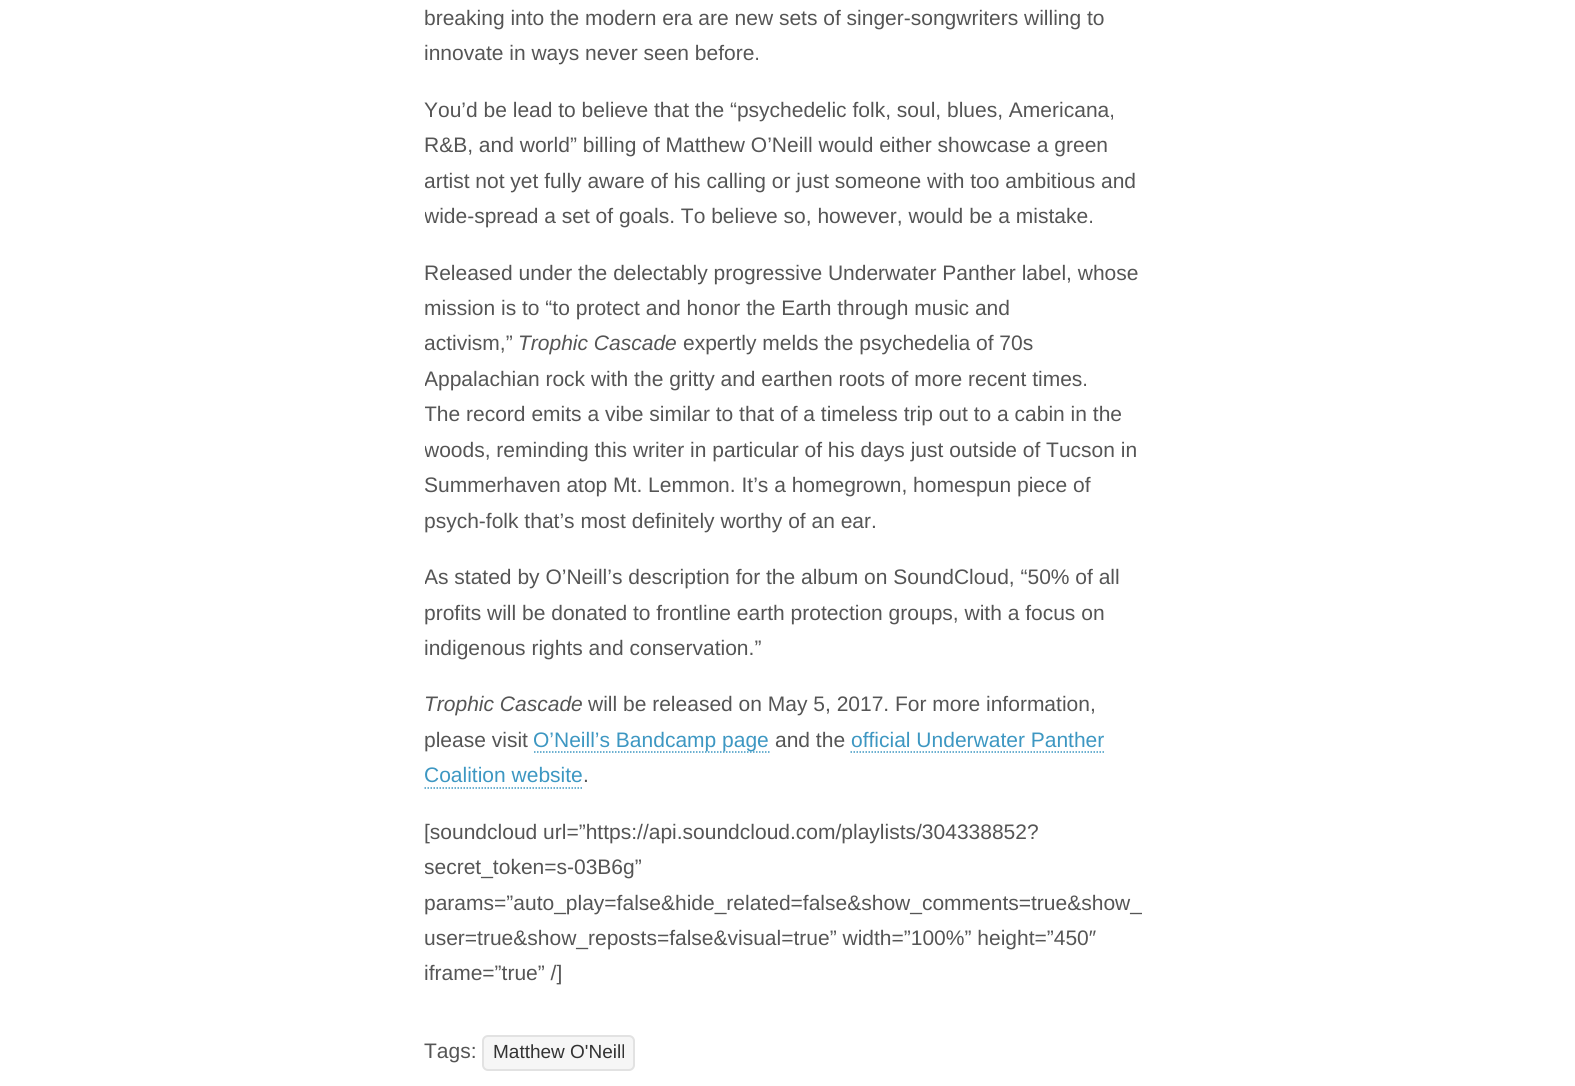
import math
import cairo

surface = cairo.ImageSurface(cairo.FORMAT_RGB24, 1575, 1086)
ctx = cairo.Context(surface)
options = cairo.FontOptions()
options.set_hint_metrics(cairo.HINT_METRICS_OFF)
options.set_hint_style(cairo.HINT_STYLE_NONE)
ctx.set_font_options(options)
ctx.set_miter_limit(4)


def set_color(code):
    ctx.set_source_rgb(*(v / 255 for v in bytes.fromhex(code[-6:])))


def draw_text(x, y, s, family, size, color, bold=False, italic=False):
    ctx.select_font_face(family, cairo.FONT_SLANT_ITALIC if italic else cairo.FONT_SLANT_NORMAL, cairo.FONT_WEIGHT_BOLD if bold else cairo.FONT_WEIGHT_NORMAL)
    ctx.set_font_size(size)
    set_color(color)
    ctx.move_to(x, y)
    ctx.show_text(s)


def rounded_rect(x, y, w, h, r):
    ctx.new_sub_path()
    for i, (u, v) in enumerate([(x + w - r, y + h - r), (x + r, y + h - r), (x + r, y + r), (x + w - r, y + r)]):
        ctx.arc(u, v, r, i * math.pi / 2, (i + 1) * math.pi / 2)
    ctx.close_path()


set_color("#ffffff")
ctx.paint()
draw_text(424, 25, "breaking into the modern era are new sets of singer-songwriters willing to", "Liberation Sans", 21, "#555555")
draw_text(424, 60, "innovate in ways never seen before.", "Liberation Sans", 21, "#555555")
draw_text(424, 117, "You’d be lead to believe that the “psychedelic folk, soul, blues, Americana,", "Liberation Sans", 21, "#555555")
draw_text(424, 152, "R&B, and world” billing of Matthew O’Neill would either showcase a green", "Liberation Sans", 21, "#555555")
ctx.save()
ctx.rectangle(425, 0, 727, 1013)
ctx.clip()
draw_text(424, 188, "artist not yet fully aware of his calling or just someone with too ambitious and", "Liberation Sans", 21, "#555555")
draw_text(424, 223, "wide-spread a set of goals. To believe so, however, would be a mistake.", "Liberation Sans", 21, "#555555")
ctx.restore()
draw_text(424, 280, "Released under the delectably progressive Underwater Panther label, whose", "Liberation Sans", 21, "#555555")
draw_text(424, 315, "mission is to “to protect and honor the Earth through music and", "Liberation Sans", 21, "#555555")
ctx.save()
ctx.rectangle(425, 0, 727, 1013)
ctx.clip()
draw_text(424, 350, "activism,”", "Liberation Sans", 21, "#555555")
ctx.restore()
draw_text(518, 350, "Trophic Cascade", "Liberation Sans", 21, "#555555", italic=True)
draw_text(683, 350, "expertly melds the psychedelia of 70s", "Liberation Sans", 21, "#555555")
ctx.save()
ctx.rectangle(425, 0, 727, 1013)
ctx.clip()
draw_text(424, 386, "Appalachian rock with the gritty and earthen roots of more recent times.", "Liberation Sans", 21, "#555555")
draw_text(424, 421, "The record emits a vibe similar to that of a timeless trip out to a cabin in the", "Liberation Sans", 21, "#555555")
draw_text(424, 457, "woods, reminding this writer in particular of his days just outside of Tucson in", "Liberation Sans", 21, "#555555")
ctx.restore()
draw_text(424, 492, "Summerhaven atop Mt. Lemmon. It’s a homegrown, homespun piece of", "Liberation Sans", 21, "#555555")
draw_text(424, 528, "psych-folk that’s most definitely worthy of an ear.", "Liberation Sans", 21, "#555555")
ctx.save()
ctx.rectangle(425, 0, 727, 1013)
ctx.clip()
draw_text(424, 584, "As stated by O’Neill’s description for the album on SoundCloud, “50% of all", "Liberation Sans", 21, "#555555")
ctx.restore()
draw_text(424, 620, "profits will be donated to frontline earth protection groups, with a focus on", "Liberation Sans", 21, "#555555")
draw_text(424, 655, "indigenous rights and conservation.”", "Liberation Sans", 21, "#555555")
draw_text(424, 711, "Trophic Cascade", "Liberation Sans", 21, "#555555", italic=True)
draw_text(588, 711, "will be released on May 5, 2017. For more information,", "Liberation Sans", 21, "#555555")
draw_text(424, 747, "please visit", "Liberation Sans", 21, "#555555")
ctx.new_path()
ctx.move_to(534, 752)
ctx.line_to(769.5, 752)
set_color("#3d97c2")
ctx.set_line_width(1.5)
ctx.set_dash([1.5, 1.5])
ctx.stroke()
draw_text(533, 747, "O’Neill’s Bandcamp page", "Liberation Sans", 21, "#3d97c2")
draw_text(775, 747, "and the", "Liberation Sans", 21, "#555555")
draw_text(851, 747, "official Underwater Panther", "Liberation Sans", 21, "#3d97c2")
ctx.new_path()
ctx.move_to(850.5, 752)
ctx.line_to(1104, 752)
ctx.stroke()
ctx.save()
ctx.rectangle(425, 0, 727, 1013)
ctx.clip()
draw_text(424, 782, "Coalition website", "Liberation Sans", 21, "#3d97c2")
ctx.restore()
ctx.new_path()
ctx.move_to(424.5, 788)
ctx.line_to(582, 788)
ctx.stroke()
draw_text(583, 782, ".", "Liberation Sans", 21, "#555555")
draw_text(424, 839, "[soundcloud url=”https://api.soundcloud.com/playlists/304338852?", "Liberation Sans", 21, "#555555")
ctx.save()
ctx.rectangle(425, 0, 727, 1013)
ctx.clip()
draw_text(424, 874, "secret_token=s-03B6g”", "Liberation Sans", 21, "#555555")
ctx.restore()
draw_text(424, 910, "params=”auto_play=false&hide_related=false&show_comments=true&show_", "Liberation Sans", 21, "#555555")
draw_text(424, 945, "user=true&show_reposts=false&visual=true” width=”100%” height=”450″", "Liberation Sans", 21, "#555555")
draw_text(424, 980, "iframe=”true” /]", "Liberation Sans", 21, "#555555")
draw_text(424, 1058, "Tags:", "Liberation Sans", 21, "#555555")
set_color("#f6f6f6")
rounded_rect(483, 1036, 151, 34, 5)
ctx.fill_preserve()
set_color("#e2e2e2")
ctx.set_line_width(2)
ctx.set_dash([])
ctx.stroke()
draw_text(493, 1058, "Matthew O'Neill", "Liberation Sans", 19, "#333333")
surface.write_to_png("output.png")
